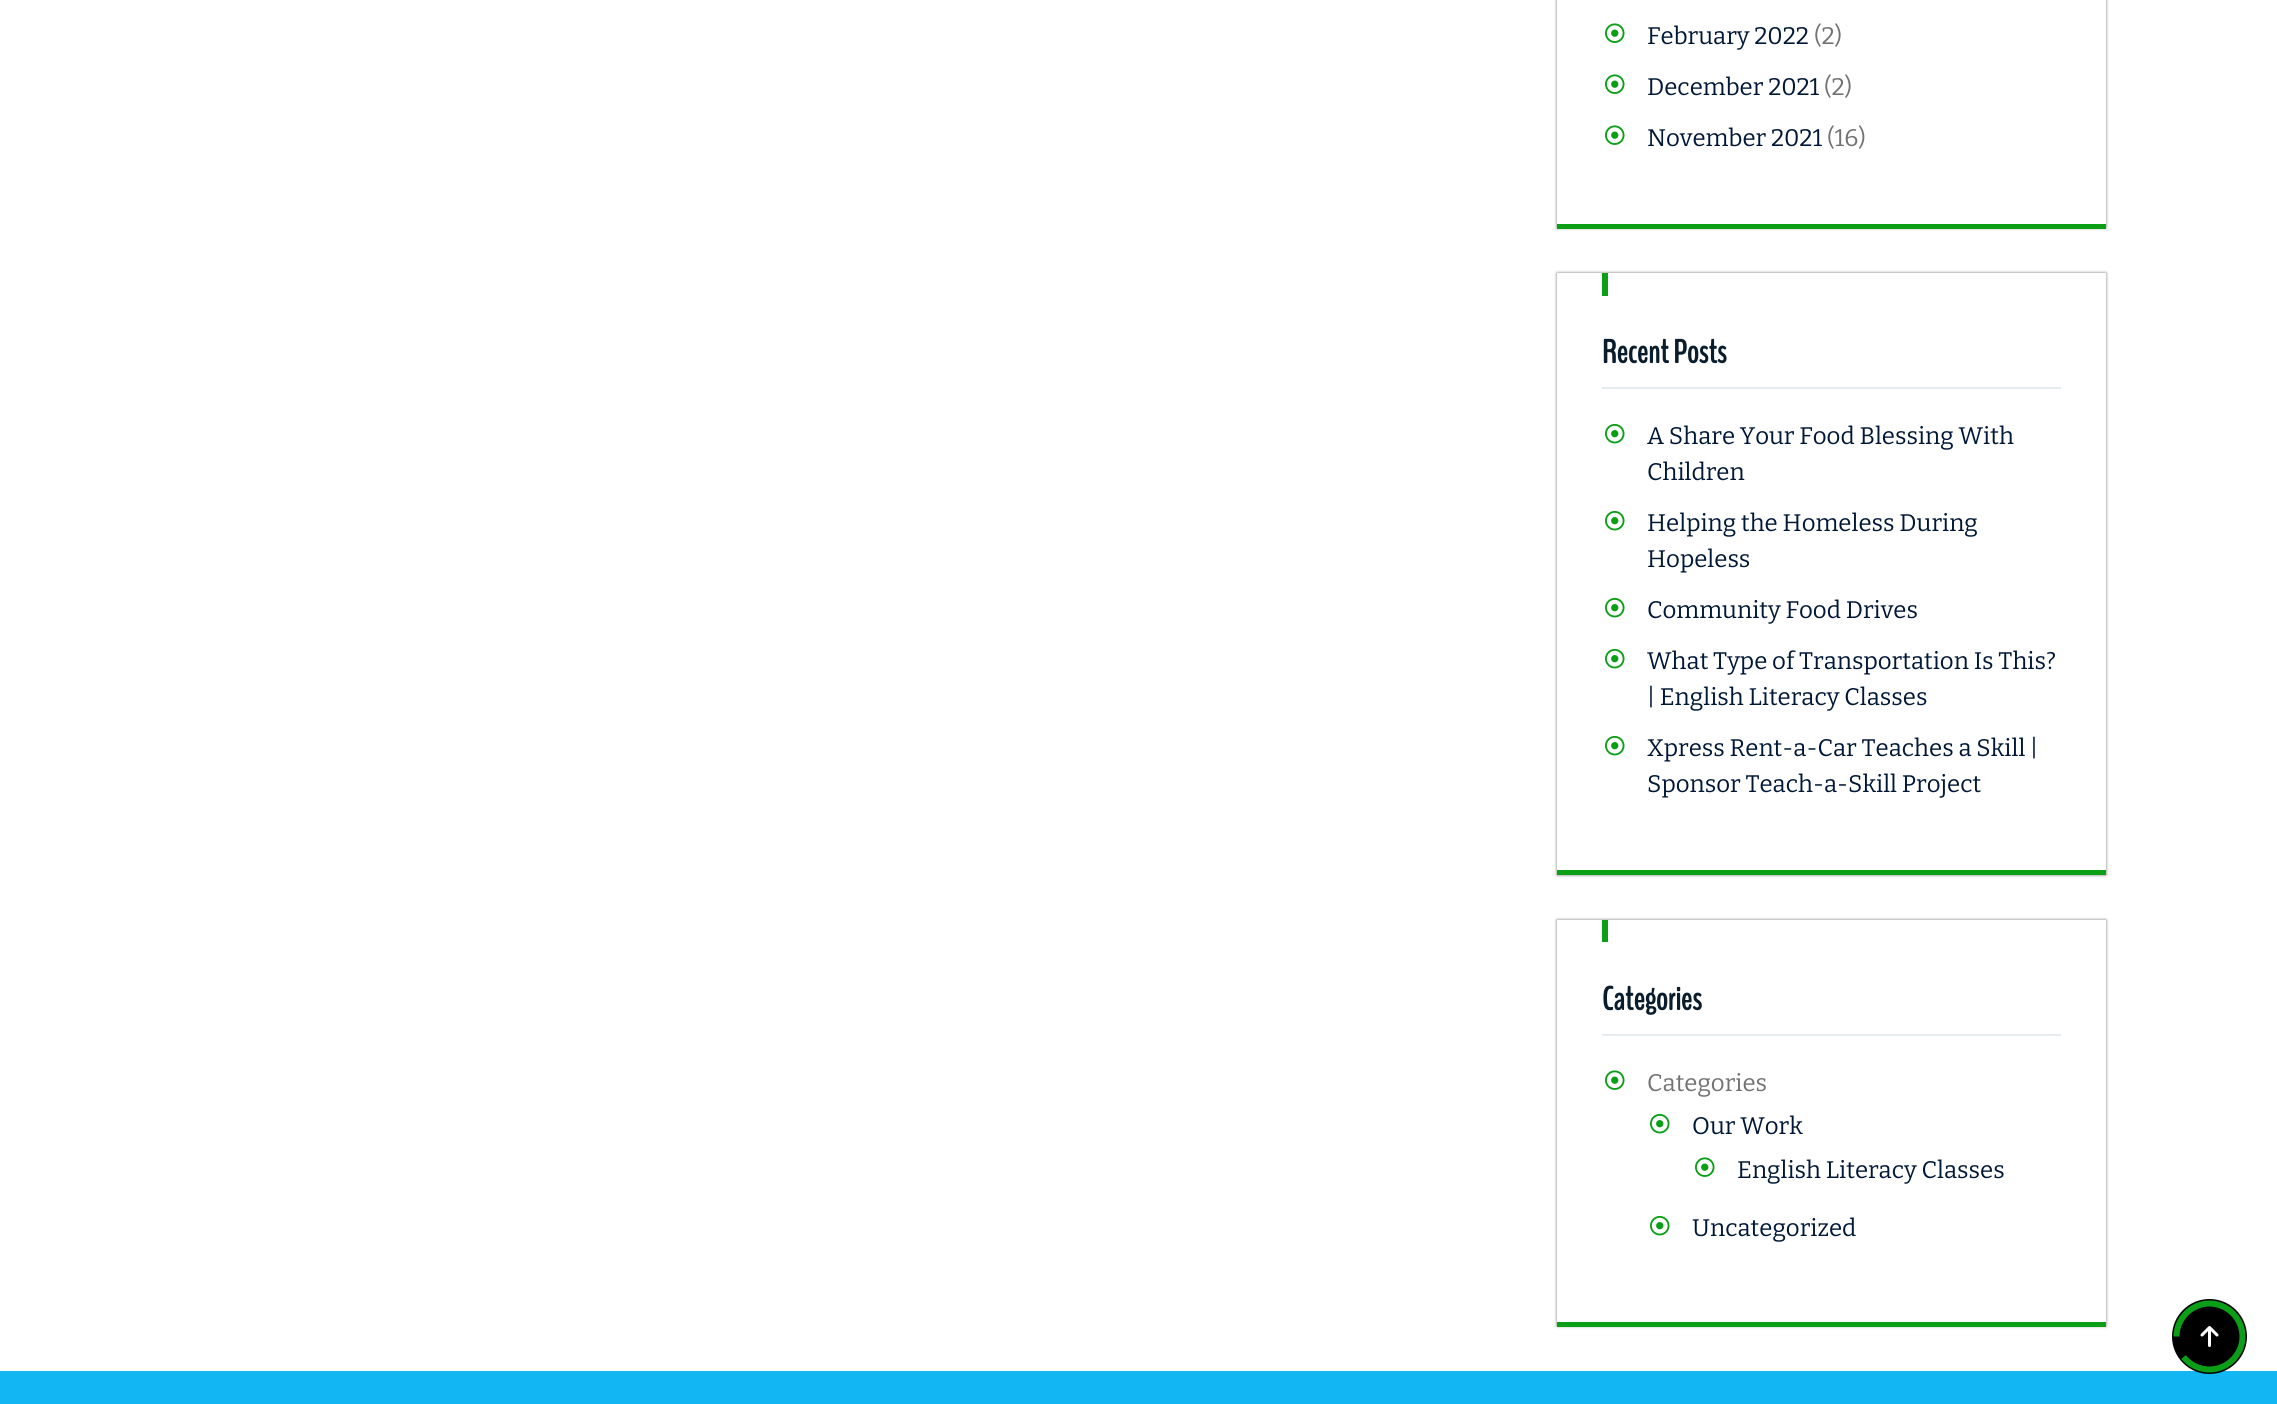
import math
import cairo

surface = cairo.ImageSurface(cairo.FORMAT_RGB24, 2277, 1404)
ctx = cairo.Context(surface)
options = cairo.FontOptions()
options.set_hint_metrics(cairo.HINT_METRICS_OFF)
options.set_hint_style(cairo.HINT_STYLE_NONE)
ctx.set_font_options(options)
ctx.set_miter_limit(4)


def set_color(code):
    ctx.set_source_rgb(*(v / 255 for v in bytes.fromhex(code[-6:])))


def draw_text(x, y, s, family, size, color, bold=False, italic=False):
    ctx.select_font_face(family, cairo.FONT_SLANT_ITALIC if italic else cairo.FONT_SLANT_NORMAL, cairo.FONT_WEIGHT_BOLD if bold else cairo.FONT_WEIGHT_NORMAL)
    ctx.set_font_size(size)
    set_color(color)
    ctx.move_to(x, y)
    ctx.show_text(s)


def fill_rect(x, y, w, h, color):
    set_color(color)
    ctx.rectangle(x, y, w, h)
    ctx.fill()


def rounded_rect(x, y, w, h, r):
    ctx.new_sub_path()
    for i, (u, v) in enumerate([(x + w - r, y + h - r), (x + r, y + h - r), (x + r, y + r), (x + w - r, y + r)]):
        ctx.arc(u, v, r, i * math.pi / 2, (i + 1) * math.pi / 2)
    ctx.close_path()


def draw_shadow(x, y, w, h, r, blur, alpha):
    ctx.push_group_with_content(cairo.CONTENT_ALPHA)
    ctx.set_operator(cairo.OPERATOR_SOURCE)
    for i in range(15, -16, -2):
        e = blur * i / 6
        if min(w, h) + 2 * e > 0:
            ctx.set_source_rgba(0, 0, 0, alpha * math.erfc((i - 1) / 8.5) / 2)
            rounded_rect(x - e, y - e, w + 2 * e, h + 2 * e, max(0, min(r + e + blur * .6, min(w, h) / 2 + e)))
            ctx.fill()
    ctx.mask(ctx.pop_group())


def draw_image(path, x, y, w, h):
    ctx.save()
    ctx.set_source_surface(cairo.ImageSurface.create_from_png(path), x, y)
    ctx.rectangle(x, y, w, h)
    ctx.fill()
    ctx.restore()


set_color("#ffffff")
ctx.paint()
ctx.save()
ctx.set_fill_rule(cairo.FILL_RULE_EVEN_ODD)
ctx.new_path()
ctx.move_to(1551, 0)
ctx.line_to(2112, 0)
ctx.line_to(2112, 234)
ctx.line_to(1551, 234)
ctx.close_path()
ctx.move_to(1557, -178)
ctx.line_to(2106, -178)
ctx.line_to(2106, 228)
ctx.line_to(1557, 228)
ctx.close_path()
ctx.clip()
set_color("#727070")
draw_shadow(1557, -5, 549, 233, 0, 1.5, 1)
ctx.restore()
fill_rect(1557, 224, 549, 5, "#0b9e17")
draw_image("assets/img1.png", 1605, 23, 20, 20)
draw_text(1647, 44, "February 2022", "Bitter", 24, "#001837")
draw_text(1814, 44, "(2)", "Bitter", 24, "#727272")
draw_image("assets/img2.png", 1605, 74, 20, 20)
draw_text(1647, 95, "December 2021", "Bitter", 24, "#001837")
draw_text(1824, 95, "(2)", "Bitter", 24, "#727272")
draw_image("assets/img2.png", 1605, 125, 20, 20)
draw_text(1647, 146, "November 2021", "Bitter", 24, "#001837")
draw_text(1827, 146, "(16)", "Bitter", 24, "#727272")
ctx.save()
ctx.set_fill_rule(cairo.FILL_RULE_EVEN_ODD)
ctx.new_path()
ctx.move_to(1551, 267)
ctx.line_to(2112, 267)
ctx.line_to(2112, 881)
ctx.line_to(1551, 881)
ctx.close_path()
ctx.move_to(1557, 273)
ctx.line_to(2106, 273)
ctx.line_to(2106, 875)
ctx.line_to(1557, 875)
ctx.close_path()
ctx.clip()
set_color("#727070")
draw_shadow(1557, 273, 549, 602, 0, 1.5, 1)
ctx.restore()
fill_rect(1557, 870, 549, 5, "#0b9e17")
fill_rect(1602, 273, 6, 23, "#0b9e17")
fill_rect(1602, 387, 459, 2, "#e7ecef")
draw_text(1602, 363, "Recent Posts", "BenchNine", 33, "#091d2d", bold=True)
draw_image("assets/img3.png", 1605, 423, 20, 21)
draw_text(1647, 444, "A Share Your Food Blessing With", "Bitter", 24, "#001837")
draw_text(1647, 480, "Children", "Bitter", 24, "#001837")
draw_image("assets/img3.png", 1605, 510, 20, 21)
draw_text(1647, 531, "Helping the Homeless During", "Bitter", 24, "#001837")
draw_text(1647, 567, "Hopeless", "Bitter", 24, "#001837")
draw_image("assets/img3.png", 1605, 597, 20, 21)
draw_text(1647, 618, "Community Food Drives", "Bitter", 24, "#001837")
draw_image("assets/img3.png", 1605, 648, 20, 21)
draw_text(1647, 669, "What Type of Transportation Is This?", "Bitter", 24, "#001837")
draw_text(1647, 705, "| English Literacy Classes", "Bitter", 24, "#001837")
draw_image("assets/img3.png", 1605, 735, 20, 21)
draw_text(1647, 756, "Xpress Rent-a-Car Teaches a Skill |", "Bitter", 24, "#001837")
draw_text(1647, 792, "Sponsor Teach-a-Skill Project", "Bitter", 24, "#001837")
ctx.save()
ctx.set_fill_rule(cairo.FILL_RULE_EVEN_ODD)
ctx.new_path()
ctx.move_to(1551, 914)
ctx.line_to(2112, 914)
ctx.line_to(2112, 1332)
ctx.line_to(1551, 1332)
ctx.close_path()
ctx.move_to(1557, 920)
ctx.line_to(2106, 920)
ctx.line_to(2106, 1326)
ctx.line_to(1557, 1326)
ctx.close_path()
ctx.clip()
set_color("#727070")
draw_shadow(1557, 920, 549, 406, 0, 1.5, 1)
ctx.restore()
fill_rect(1557, 1322, 549, 5, "#0b9e17")
fill_rect(1602, 920, 6, 22, "#0b9e17")
fill_rect(1602, 1034, 459, 2, "#e7ecef")
draw_text(1602, 1010, "Categories", "BenchNine", 33, "#091d2d", bold=True)
draw_image("assets/img2.png", 1605, 1070, 20, 20)
draw_text(1647, 1091, "Categories", "Bitter", 24, "#727272")
draw_image("assets/img3.png", 1650, 1113, 20, 21)
draw_text(1692, 1134, "Our Work", "Bitter", 24, "#001837")
draw_image("assets/img2.png", 1695, 1157, 20, 20)
draw_text(1737, 1178, "English Literacy Classes", "Bitter", 24, "#001837")
draw_image("assets/img3.png", 1650, 1215, 20, 21)
draw_text(1692, 1236, "Uncategorized", "Bitter", 24, "#001837")
fill_rect(0, 1371, 2277, 33, "#12b6f3")
set_color("#000000")
ctx.new_path()
ctx.arc(2209.5, 1336.5, 37.5, 0, 2 * math.pi)
ctx.fill()
draw_image("assets/img4.png", 2200, 1326, 19, 21)
ctx.new_path()
ctx.move_to(2176.5, 1336.5)
ctx.curve_to(2176.5, 1318.5, 2191.5, 1303.5, 2209.5, 1303.5)
ctx.curve_to(2227.5, 1303.5, 2242.5, 1318.5, 2242.5, 1336.5)
ctx.curve_to(2242.5, 1354.5, 2227.5, 1369.5, 2209.5, 1369.5)
ctx.curve_to(2199, 1369.5, 2189.5, 1364.5, 2183.5, 1357)
set_color("#0b9e17")
ctx.set_line_width(6)
ctx.stroke()
surface.write_to_png("output.png")
